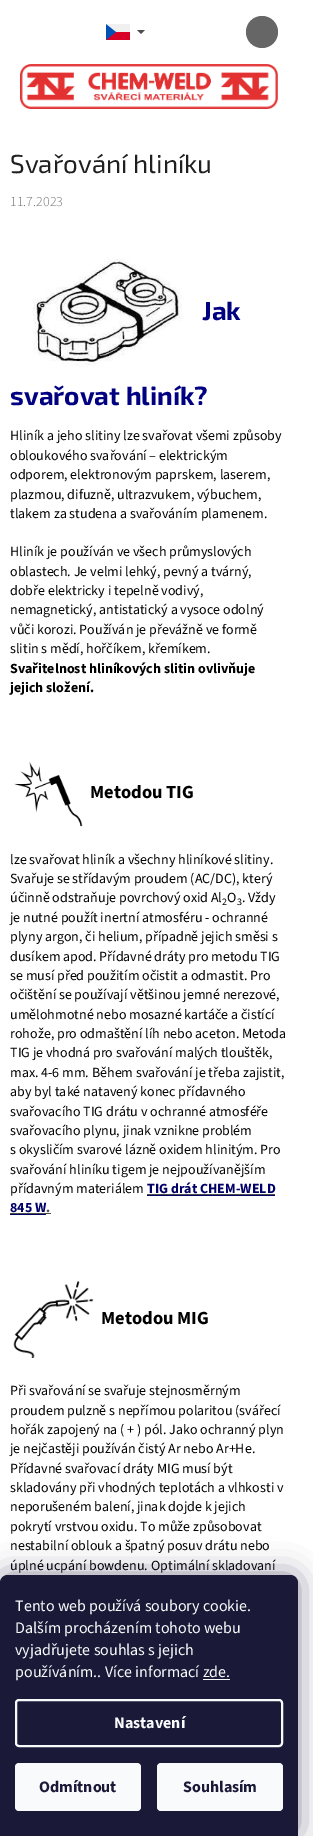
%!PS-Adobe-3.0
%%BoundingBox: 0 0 313 1836
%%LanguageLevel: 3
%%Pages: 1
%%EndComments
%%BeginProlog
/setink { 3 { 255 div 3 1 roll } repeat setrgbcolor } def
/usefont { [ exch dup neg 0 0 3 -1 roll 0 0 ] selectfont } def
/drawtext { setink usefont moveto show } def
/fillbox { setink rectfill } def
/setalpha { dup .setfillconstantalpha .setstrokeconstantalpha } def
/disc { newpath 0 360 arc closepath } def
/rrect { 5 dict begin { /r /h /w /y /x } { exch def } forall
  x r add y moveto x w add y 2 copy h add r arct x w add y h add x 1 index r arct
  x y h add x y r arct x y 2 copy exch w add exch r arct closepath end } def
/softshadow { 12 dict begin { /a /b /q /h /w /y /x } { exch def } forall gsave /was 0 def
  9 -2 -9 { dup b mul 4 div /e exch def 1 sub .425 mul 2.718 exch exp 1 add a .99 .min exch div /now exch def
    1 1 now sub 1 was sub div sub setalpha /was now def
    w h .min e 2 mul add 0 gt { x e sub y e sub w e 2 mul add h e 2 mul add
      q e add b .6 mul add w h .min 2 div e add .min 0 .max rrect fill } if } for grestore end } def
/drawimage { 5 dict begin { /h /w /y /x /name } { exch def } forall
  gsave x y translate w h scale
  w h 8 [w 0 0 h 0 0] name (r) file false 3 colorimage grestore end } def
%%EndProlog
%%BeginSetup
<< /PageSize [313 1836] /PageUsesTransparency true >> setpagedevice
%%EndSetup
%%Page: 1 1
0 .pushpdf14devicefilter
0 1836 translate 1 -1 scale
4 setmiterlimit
0 0 313 1836 255 255 255 fillbox
(assets/img1.rgb) 106 24 24 16 drawimage
77 77 77 setink
137 30 moveto 145 30 lineto 141 34 lineto closepath fill
102 102 102 setink
262 32 16 disc fill
(assets/img2.rgb) 20 64 258 45 drawimage
(Svařování hliníku) 10 173 /Exo2-Regular 26 31 31 31 drawtext
(11.7.2023) 10 206 /SourceSans3-Light 14 118 118 118 drawtext
(assets/img3.rgb) 33 258 149 109 drawimage
(Jak) 202 320 /Exo2-Bold 26 0 0 128 drawtext
(svařovat hliník?) 10 405 /Exo2-Bold 26 0 0 128 drawtext
(Hliník a jeho slitiny lze svařovat všemi způsoby) 10 440 /SourceSans3-Regular 14 0 0 0 drawtext
(obloukového svařování – elektrickým) 10 460 /SourceSans3-Regular 14 0 0 0 drawtext
(odporem, elektronovým paprskem, laserem,) 10 479 /SourceSans3-Regular 14 0 0 0 drawtext
(plazmou, difuzně, ultrazvukem, výbuchem,) 10 499 /SourceSans3-Regular 14 0 0 0 drawtext
(tlakem za studena a svařováním plamenem.) 10 518 /SourceSans3-Regular 14 0 0 0 drawtext
(Hliník je používán ve všech průmyslových) 10 556 /SourceSans3-Regular 14 0 0 0 drawtext
(oblastech. Je velmi lehký, pevný a tvárný,) 10 576 /SourceSans3-Regular 14 0 0 0 drawtext
(dobře elektricky i tepelně vodivý,) 10 595 /SourceSans3-Regular 14 0 0 0 drawtext
(nemagnetický, antistatický a vysoce odolný) 10 614 /SourceSans3-Regular 14 0 0 0 drawtext
(vůči korozi. Používán je převážně ve formě) 10 634 /SourceSans3-Regular 14 0 0 0 drawtext
(slitin s mědí, hořčíkem, křemíkem.) 10 653 /SourceSans3-Regular 14 0 0 0 drawtext
(Svařitelnost hliníkových slitin ovlivňuje) 10 673 /SourceSans3-Bold 14 0 0 0 drawtext
(jejich složení.) 10 692 /SourceSans3-Bold 14 0 0 0 drawtext
(assets/img4.rgb) 14 762 69 65 drawimage
(Metodou TIG) 90 798 /SourceSans3-Bold 18.5 0 0 0 drawtext
(lze svařovat hliník a všechny hliníkové slitiny.) 10 864 /SourceSans3-Regular 14 0 0 0 drawtext
(Svařuje se střídavým proudem \(AC/DC\), který) 10 883 /SourceSans3-Regular 14 0 0 0 drawtext
(účinně odstraňuje povrchový oxid Al) 10 902 /SourceSans3-Regular 14 0 0 0 drawtext
(2) 222 905 /SourceSans3-Regular 10 0 0 0 drawtext
(O) 227 902 /SourceSans3-Regular 14 0 0 0 drawtext
(3) 237 905 /SourceSans3-Regular 10 0 0 0 drawtext
(. Vždy) 242 902 /SourceSans3-Regular 14 0 0 0 drawtext
(je nutné použít inertní atmosféru - ochranné) 10 922 /SourceSans3-Regular 14 0 0 0 drawtext
(plyny argon, či helium, případně jejich směsi s) 10 941 /SourceSans3-Regular 14 0 0 0 drawtext
(dusíkem apod. Přídavné dráty pro metodu TIG) 10 961 /SourceSans3-Regular 14 0 0 0 drawtext
(se musí před použitím očistit a odmastit. Pro) 10 980 /SourceSans3-Regular 14 0 0 0 drawtext
(očištění se používají většinou jemné nerezové,) 10 999 /SourceSans3-Regular 14 0 0 0 drawtext
(umělohmotné nebo mosazné kartáče a čistící) 10 1019 /SourceSans3-Regular 14 0 0 0 drawtext
(rohože, pro odmaštění líh nebo aceton. Metoda) 10 1038 /SourceSans3-Regular 14 0 0 0 drawtext
(TIG je vhodná pro svařování malých tlouštěk,) 10 1057 /SourceSans3-Regular 14 0 0 0 drawtext
(max. 4-6 mm. Během svařování je třeba zajistit,) 10 1077 /SourceSans3-Regular 14 0 0 0 drawtext
(aby byl také natavený konec přídavného) 10 1096 /SourceSans3-Regular 14 0 0 0 drawtext
(svařovacího TIG drátu v ochranné atmosféře) 10 1116 /SourceSans3-Regular 14 0 0 0 drawtext
(svařovacího plynu, jinak vznikne problém) 10 1135 /SourceSans3-Regular 14 0 0 0 drawtext
(s okysličím svarové lázně oxidem hlinitým. Pro) 10 1154 /SourceSans3-Regular 14 0 0 0 drawtext
(svařování hliníku tigem je nejpoužívanějším) 10 1174 /SourceSans3-Regular 14 0 0 0 drawtext
(přídavným materiálem) 10 1193 /SourceSans3-Regular 14 0 0 0 drawtext
(TIG drát CHEM-WELD) 147 1193 /SourceSans3-Bold 14 1 0 102 drawtext
147 1195 128 1 1 0 102 fillbox
147 1194 128 1 77 77 77 fillbox
(845 W) 10 1212 /SourceSans3-Bold 14 1 0 102 drawtext
(.) 46 1212 /SourceSans3-Bold 14 77 77 77 drawtext
10 1214 36 1 1 0 102 fillbox
10 1213 41 1 77 77 77 fillbox
(assets/img5.rgb) 13 1281 81 77 drawimage
(Metodou MIG) 101 1324 /SourceSans3-Bold 18.5 0 0 0 drawtext
(Při svařování se svařuje stejnosměrným) 10 1395 /SourceSans3-Regular 14 0 0 0 drawtext
(proudem pulzně s nepřímou polaritou \(svářecí) 10 1415 /SourceSans3-Regular 14 0 0 0 drawtext
(hořák zapojený na \( + \) pól. Jako ochranný plyn) 10 1434 /SourceSans3-Regular 14 0 0 0 drawtext
(je nejčastěji používán čistý Ar nebo Ar+He.) 10 1453 /SourceSans3-Regular 14 0 0 0 drawtext
(Přídavné svařovací dráty MIG musí být) 10 1473 /SourceSans3-Regular 14 0 0 0 drawtext
(skladovány při vhodných teplotách a vlhkosti v) 10 1492 /SourceSans3-Regular 14 0 0 0 drawtext
(neporušeném balení, jinak dojde k jejich) 10 1511 /SourceSans3-Regular 14 0 0 0 drawtext
(pokrytí vrstvou oxidu. To může způsobovat) 10 1531 /SourceSans3-Regular 14 0 0 0 drawtext
(nestabilní oblouk a špatný posuv drátu nebo) 10 1550 /SourceSans3-Regular 14 0 0 0 drawtext
(úplné ucpání bowdenu. Optimální skladovaní) 10 1570 /SourceSans3-Regular 14 0 0 0 drawtext
27 25 57 setink
0 1575 298 261 8 15 0.5 softshadow
26 25 55 setink
8 1575 moveto 290 1575 lineto 294.5 1575 298 1578.5 298 1583 curveto 298 1836 lineto 0 1836 lineto 0 1583 lineto 0 1578.5 3.5 1575 8 1575 curveto closepath fill
(Tento web používá soubory cookie.) 15 1611 /SourceSans3-Regular 16 248 250 251 drawtext
(Dalším procházením tohoto webu) 15 1633 /SourceSans3-Regular 16 248 250 251 drawtext
(vyjadřujete souhlas s jejich) 15 1655 /SourceSans3-Regular 16 248 250 251 drawtext
(používáním.. Více informací zde.) 15 1677 /SourceSans3-Regular 16 248 250 251 drawtext
203 1679 27 1 248 250 251 fillbox
2 setlinewidth
16 1700 266 46 3 rrect stroke
(Nastavení) 114 1728 /SourceSans3-Bold 16 248 250 251 drawtext
15 1763 126 48 4 rrect fill
(Odmítnout) 39 1792 /SourceSans3-Bold 16 26 25 55 drawtext
248 250 251 setink
157 1763 126 48 4 rrect fill
(Souhlasím) 183 1792 /SourceSans3-Bold 16 26 25 55 drawtext
.poppdf14devicefilter showpage
%%EOF
